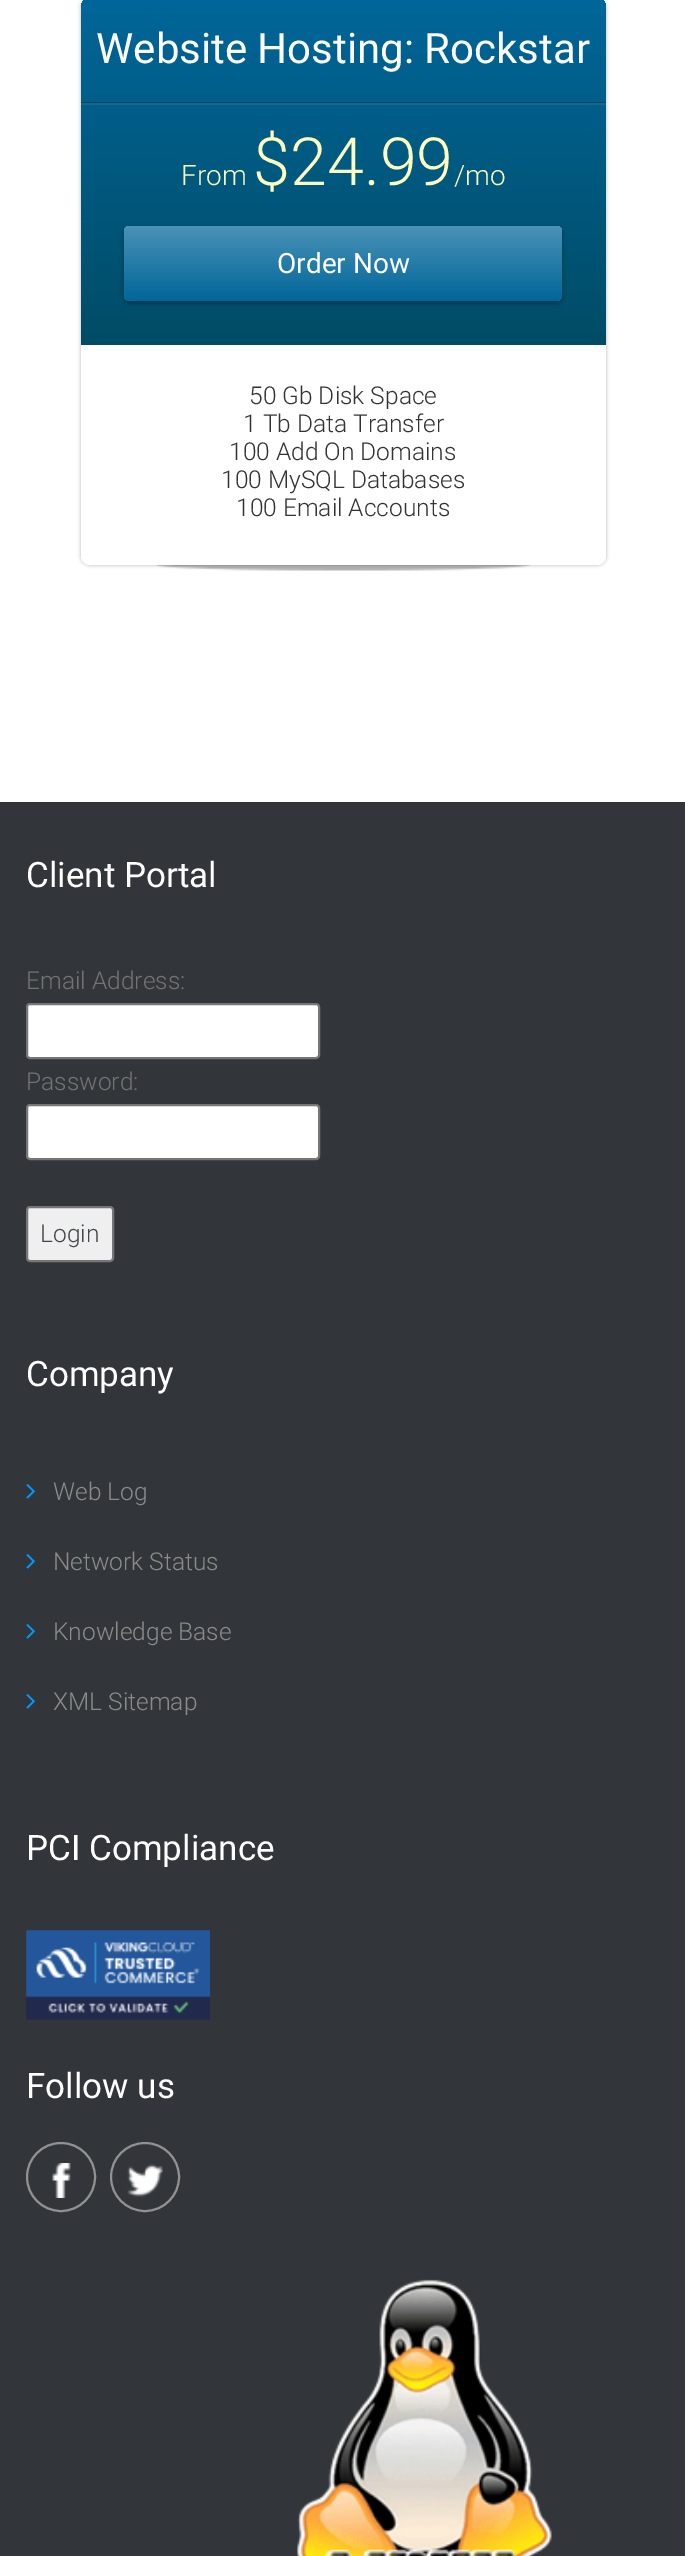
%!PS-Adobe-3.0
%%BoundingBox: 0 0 685 2556
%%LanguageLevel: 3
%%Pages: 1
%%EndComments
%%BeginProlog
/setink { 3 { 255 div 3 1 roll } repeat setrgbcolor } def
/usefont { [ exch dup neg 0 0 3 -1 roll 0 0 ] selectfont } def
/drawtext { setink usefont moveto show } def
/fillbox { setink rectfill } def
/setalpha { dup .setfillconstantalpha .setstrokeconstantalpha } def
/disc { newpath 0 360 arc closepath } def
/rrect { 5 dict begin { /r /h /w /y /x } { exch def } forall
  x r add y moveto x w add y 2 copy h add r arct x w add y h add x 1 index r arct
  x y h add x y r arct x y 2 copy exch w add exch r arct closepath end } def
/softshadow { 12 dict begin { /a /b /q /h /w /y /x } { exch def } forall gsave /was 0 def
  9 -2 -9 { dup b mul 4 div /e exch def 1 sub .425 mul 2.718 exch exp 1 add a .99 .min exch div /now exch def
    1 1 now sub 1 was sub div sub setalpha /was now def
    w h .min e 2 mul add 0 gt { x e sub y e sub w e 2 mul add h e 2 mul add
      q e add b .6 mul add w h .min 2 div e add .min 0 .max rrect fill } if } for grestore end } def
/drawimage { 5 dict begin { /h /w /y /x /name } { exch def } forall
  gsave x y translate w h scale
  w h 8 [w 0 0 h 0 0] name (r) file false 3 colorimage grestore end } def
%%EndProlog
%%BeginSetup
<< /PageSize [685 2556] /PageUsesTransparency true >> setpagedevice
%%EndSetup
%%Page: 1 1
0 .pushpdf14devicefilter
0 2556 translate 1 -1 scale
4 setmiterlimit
0 0 685 2556 255 255 255 fillbox
(assets/img1.rgb) 156 565 375 6 drawimage
0 0 0 setink
81 -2 525 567 9 2 0.3 softshadow
255 255 255 setink
81 -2 525 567 9 rrect fill
gsave 90 -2 moveto 597 -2 lineto 602 -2 606 2 606 7 curveto 606 345 lineto 81 345 lineto 81 7 lineto 81 2 85 -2 90 -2 curveto closepath clip newpath
<< /ShadingType 2 /ColorSpace /DeviceRGB /Coords [343 -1.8 343 345] /Extend [true true] /Function << /FunctionType 2 /Domain [0 1] /C0 [0 0.4 0.6] /C1 [0 0.298 0.4] /N 1 >> >> shfill grestore
81 102 525 1 0 70 98 fillbox
(Website Hosting: Rockstar) 96 63 /Roboto-Regular 42 255 255 255 drawtext
81 103 525 2 18 104 141 fillbox
(From) 181 185 /Roboto-Light 28 255 255 191 drawtext
($24.99) 253 185 /Roboto-Light 66.5 255 255 191 drawtext
(/mo) 454 185 /Roboto-Light 28 255 255 191 drawtext
0 0 0 setink
124 228 438 75 5 2 0.4 softshadow
gsave 124 226 438 75 5 rrect clip newpath
<< /ShadingType 2 /ColorSpace /DeviceRGB /Coords [343 226 343 301] /Extend [true true] /Function << /FunctionType 2 /Domain [0 1] /C0 [0.29 0.573 0.718] /C1 [0 0.4 0.6] /N 1 >> >> shfill grestore
(Order Now) 277 273 /Roboto-Regular 28 255 255 255 drawtext
(50 Gb Disk Space) 249 404 /Roboto-Light 24.5 51 51 51 drawtext
(1 Tb Data Transfer) 243 432 /Roboto-Light 24.5 51 51 51 drawtext
(100 Add On Domains) 229 460 /Roboto-Light 24.5 51 51 51 drawtext
(100 MySQL Databases) 221 488 /Roboto-Light 24.5 51 51 51 drawtext
(100 Email Accounts) 236 516 /Roboto-Light 24.5 51 51 51 drawtext
0 802 685 1754 50 53 58 fillbox
(Client Portal) 26 887 /Roboto-Regular 35 255 255 255 drawtext
(Email Address:) 26 989 /Roboto-Light 24.5 115 115 115 drawtext
255 255 255 setink
27 1004 292 54 3 rrect gsave fill grestore
118 118 118 setink
2 setlinewidth
stroke
(Password:) 26 1090 /Roboto-Light 24.5 115 115 115 drawtext
255 255 255 setink
27 1105 292 54 3 rrect gsave fill grestore
118 118 118 setink
stroke
239 239 239 setink
27 1207 86 54 3 rrect gsave fill grestore
118 118 118 setink
stroke
(Login) 40 1242 /Roboto-Light 24.5 66 69 74 drawtext
(Company) 26 1386 /Roboto-Regular 35 255 255 255 drawtext
(assets/img2.rgb) 26 1484 9 15 drawimage
(Web Log) 53 1500 /Roboto-Light 24.5 139 139 139 drawtext
(assets/img2.rgb) 26 1554 9 15 drawimage
(Network Status) 53 1570 /Roboto-Light 24.5 139 139 139 drawtext
(assets/img2.rgb) 26 1624 9 15 drawimage
(Knowledge Base) 53 1640 /Roboto-Light 24.5 139 139 139 drawtext
(assets/img2.rgb) 26 1694 9 15 drawimage
(XML Sitemap) 53 1710 /Roboto-Light 24.5 139 139 139 drawtext
(PCI Compliance) 26 1860 /Roboto-Regular 35 255 255 255 drawtext
(assets/img3.rgb) 26 1930 184 90 drawimage
(Follow us) 26 2098 /Roboto-Regular 35 255 255 255 drawtext
145 145 145 setink
61 2177 34 disc stroke
(assets/img4.rgb) 52 2163 19 35 drawimage
145 2177 34 disc stroke
(assets/img5.rgb) 127 2164 36 33 drawimage
(assets/img6.rgb) 296 2279 256 277 drawimage
.poppdf14devicefilter showpage
%%EOF
